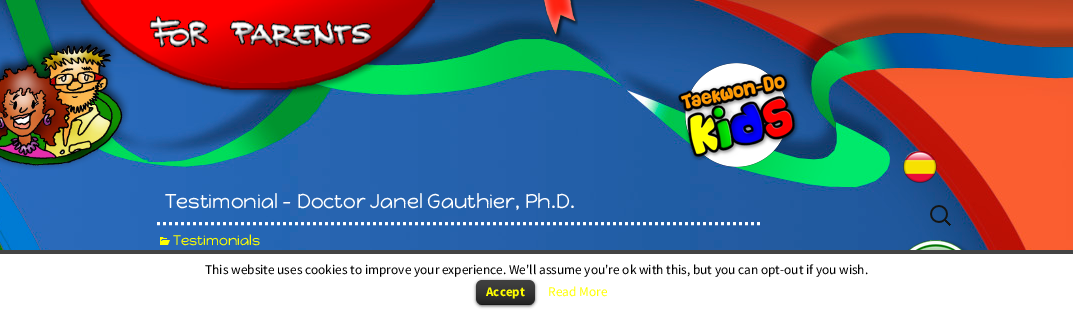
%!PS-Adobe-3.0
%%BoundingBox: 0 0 1073 310
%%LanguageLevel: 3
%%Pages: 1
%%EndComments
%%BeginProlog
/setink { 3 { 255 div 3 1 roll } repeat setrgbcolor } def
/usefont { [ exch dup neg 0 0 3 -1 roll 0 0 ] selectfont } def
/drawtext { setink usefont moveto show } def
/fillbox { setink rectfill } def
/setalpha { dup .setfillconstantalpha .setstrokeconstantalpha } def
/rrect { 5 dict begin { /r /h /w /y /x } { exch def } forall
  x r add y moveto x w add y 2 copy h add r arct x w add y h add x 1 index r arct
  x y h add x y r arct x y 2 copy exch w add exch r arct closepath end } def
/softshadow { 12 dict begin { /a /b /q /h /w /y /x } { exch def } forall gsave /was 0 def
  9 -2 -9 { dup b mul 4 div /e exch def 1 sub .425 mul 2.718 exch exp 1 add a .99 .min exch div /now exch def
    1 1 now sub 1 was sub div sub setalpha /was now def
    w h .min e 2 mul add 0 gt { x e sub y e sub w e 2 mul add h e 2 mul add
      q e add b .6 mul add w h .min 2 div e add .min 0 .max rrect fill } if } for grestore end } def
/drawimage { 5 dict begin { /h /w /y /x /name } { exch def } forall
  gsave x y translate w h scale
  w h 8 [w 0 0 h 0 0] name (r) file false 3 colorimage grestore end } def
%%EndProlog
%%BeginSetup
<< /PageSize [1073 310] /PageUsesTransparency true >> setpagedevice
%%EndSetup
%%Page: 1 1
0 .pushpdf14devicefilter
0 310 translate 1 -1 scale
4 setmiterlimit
0 0 1073 310 255 255 255 fillbox
(assets/img1.rgb) 0 0 1073 250 drawimage
(assets/img2.rgb) 0 33 129 137 drawimage
(assets/img3.rgb) 80 0 358 97 drawimage
(assets/img4.rgb) 543 0 35 39 drawimage
(assets/img5.rgb) 676 63 123 104 drawimage
(assets/img6.rgb) 902 150 35 33 drawimage
(assets/img7.rgb) 930 205 21 21 drawimage
(assets/img8.rgb) 908 240 60 10 drawimage
3 setlinewidth
[3 3] 0 setdash
157 223.5 moveto 761 223.5 lineto stroke
(Testimonial – Doctor Janel Gauthier, Ph.D.) 165 208 /HappyMonkey-Regular 20 255 255 255 drawtext
(assets/img9.rgb) 160 237 10 8 drawimage
(Testimonials) 173 245 /HappyMonkey-Regular 14 255 255 0 drawtext
0 250 1073 4 68 68 68 fillbox
(This website uses cookies to improve your experience. We'll assume you're ok with this, but you can opt-out if you wish.) 205 274 /SourceSansPro-Regular 13.35 0 0 0 drawtext
476 281 59 25 6 1.5 0.6 softshadow
476 280 59 25 6 rrect fill
(assets/img10.rgb) 476 280 59 25 drawimage
0.25 setalpha
479 304 53 1 0 0 0 fillbox
1 setalpha
(Accept) 486 296 /SourceSansPro-Bold 13 255 255 0 drawtext
(Read More) 548 296 /SourceSansPro-Regular 13.35 255 255 0 drawtext
.poppdf14devicefilter showpage
%%EOF
